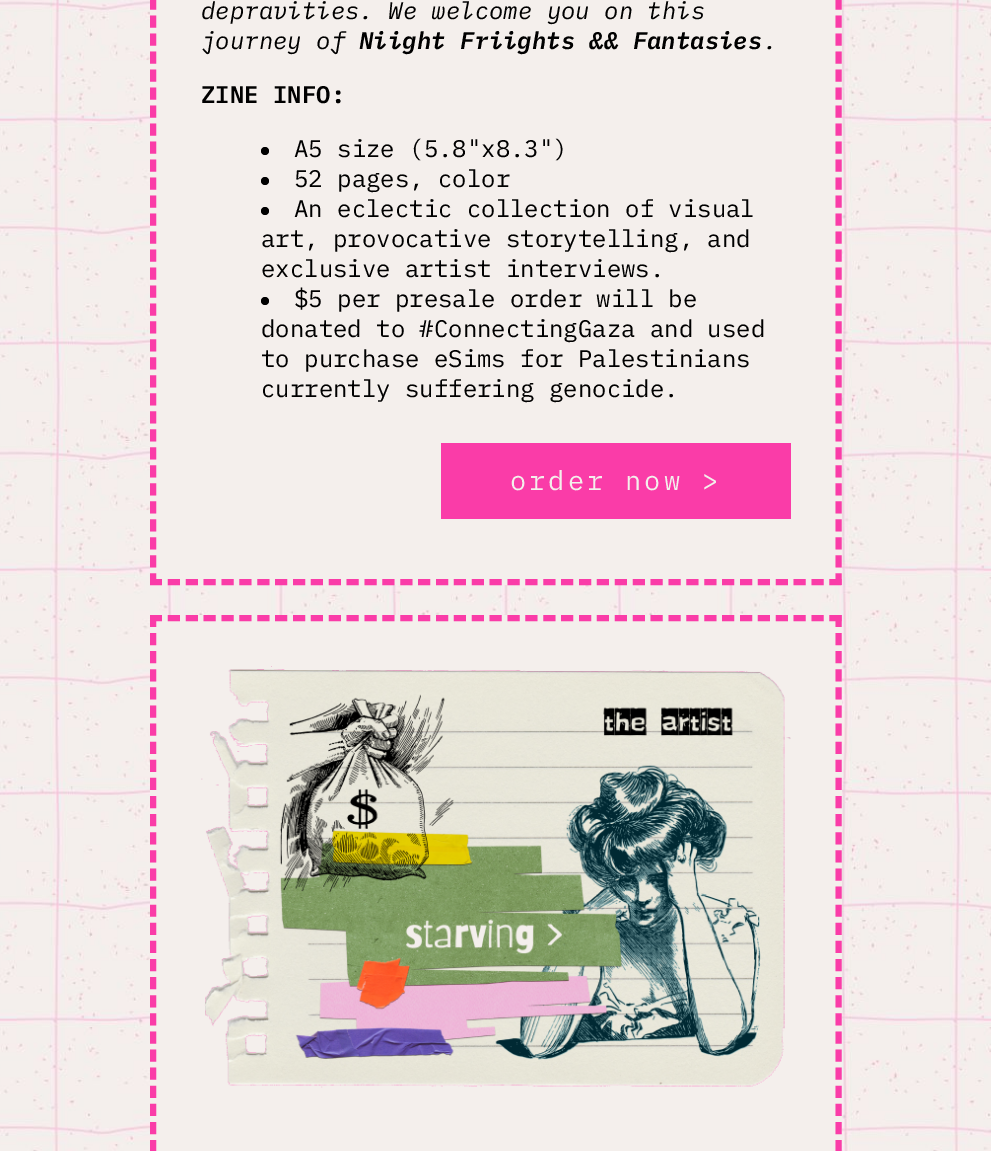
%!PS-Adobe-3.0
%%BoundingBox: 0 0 991 1151
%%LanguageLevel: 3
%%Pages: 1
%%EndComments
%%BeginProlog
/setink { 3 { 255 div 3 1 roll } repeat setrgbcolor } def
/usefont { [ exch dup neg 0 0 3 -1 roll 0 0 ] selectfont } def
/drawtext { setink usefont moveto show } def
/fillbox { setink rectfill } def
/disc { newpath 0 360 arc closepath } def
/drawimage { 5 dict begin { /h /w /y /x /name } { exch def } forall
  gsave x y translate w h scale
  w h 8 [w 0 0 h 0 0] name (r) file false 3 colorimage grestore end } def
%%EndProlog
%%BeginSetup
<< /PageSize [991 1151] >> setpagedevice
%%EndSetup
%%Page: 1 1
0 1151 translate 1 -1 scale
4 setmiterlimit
0 0 991 1151 255 255 255 fillbox
(assets/img1.rgb) 0 0 991 1151 drawimage
150 0 692 585 244 239 236 fillbox
250 60 168 setink
6 setlinewidth
[12 5.99] 0 setdash
838.5 -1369.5 moveto 838.5 585 lineto stroke
[12 5.88] 0 setdash
150 582 moveto 841.5 582 lineto stroke
[12 5.99] 0 setdash
153 -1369.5 moveto 153 585 lineto stroke
(depravities. We welcome you on this) 201 19 /IBMPlexMono-Italic 24 0 0 0 drawtext
(journey of) 201 49 /IBMPlexMono-Italic 24 0 0 0 drawtext
(Niight Friights && Fantasies) 359 49 /IBMPlexMono-SemiBoldItalic 24 0 0 0 drawtext
(.) 763 49 /IBMPlexMono-Italic 24 0 0 0 drawtext
(ZINE INFO:) 201 103 /IBMPlexMono-SemiBold 24 0 0 0 drawtext
265 151 4 disc fill
(A5 size \(5.8"x8.3"\)) 294 157 /IBMPlexMono-Regular 24 0 0 0 drawtext
265 181 4 disc fill
(52 pages, color) 294 187 /IBMPlexMono-Regular 24 0 0 0 drawtext
265 211 4 disc fill
(An eclectic collection of visual) 294 217 /IBMPlexMono-Regular 24 0 0 0 drawtext
(art, provocative storytelling, and) 261 247 /IBMPlexMono-Regular 24 0 0 0 drawtext
(exclusive artist interviews.) 261 277 /IBMPlexMono-Regular 24 0 0 0 drawtext
265 301 4 disc fill
($5 per presale order will be) 294 307 /IBMPlexMono-Regular 24 0 0 0 drawtext
(donated to #ConnectingGaza and used) 261 337 /IBMPlexMono-Regular 24 0 0 0 drawtext
(to purchase eSims for Palestinians) 261 367 /IBMPlexMono-Regular 24 0 0 0 drawtext
(currently suffering genocide.) 261 397 /IBMPlexMono-Regular 24 0 0 0 drawtext
441 443 350 76 250 60 168 fillbox
/IBMPlexMono-Regular 27 usefont
244 239 236 setink
510 490 moveto 3 0 (order now >) ashow
150 615 692 536 244 239 236 fillbox
250 60 168 setink
[12 5.88] 0 setdash
150 618 moveto 841.5 618 lineto stroke
[12 6.11] 0 setdash
838.5 615 moveto 838.5 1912.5 lineto stroke
153 615 moveto 153 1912.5 lineto stroke
(assets/img2.rgb) 201 666 590 422 drawimage
showpage
%%EOF
